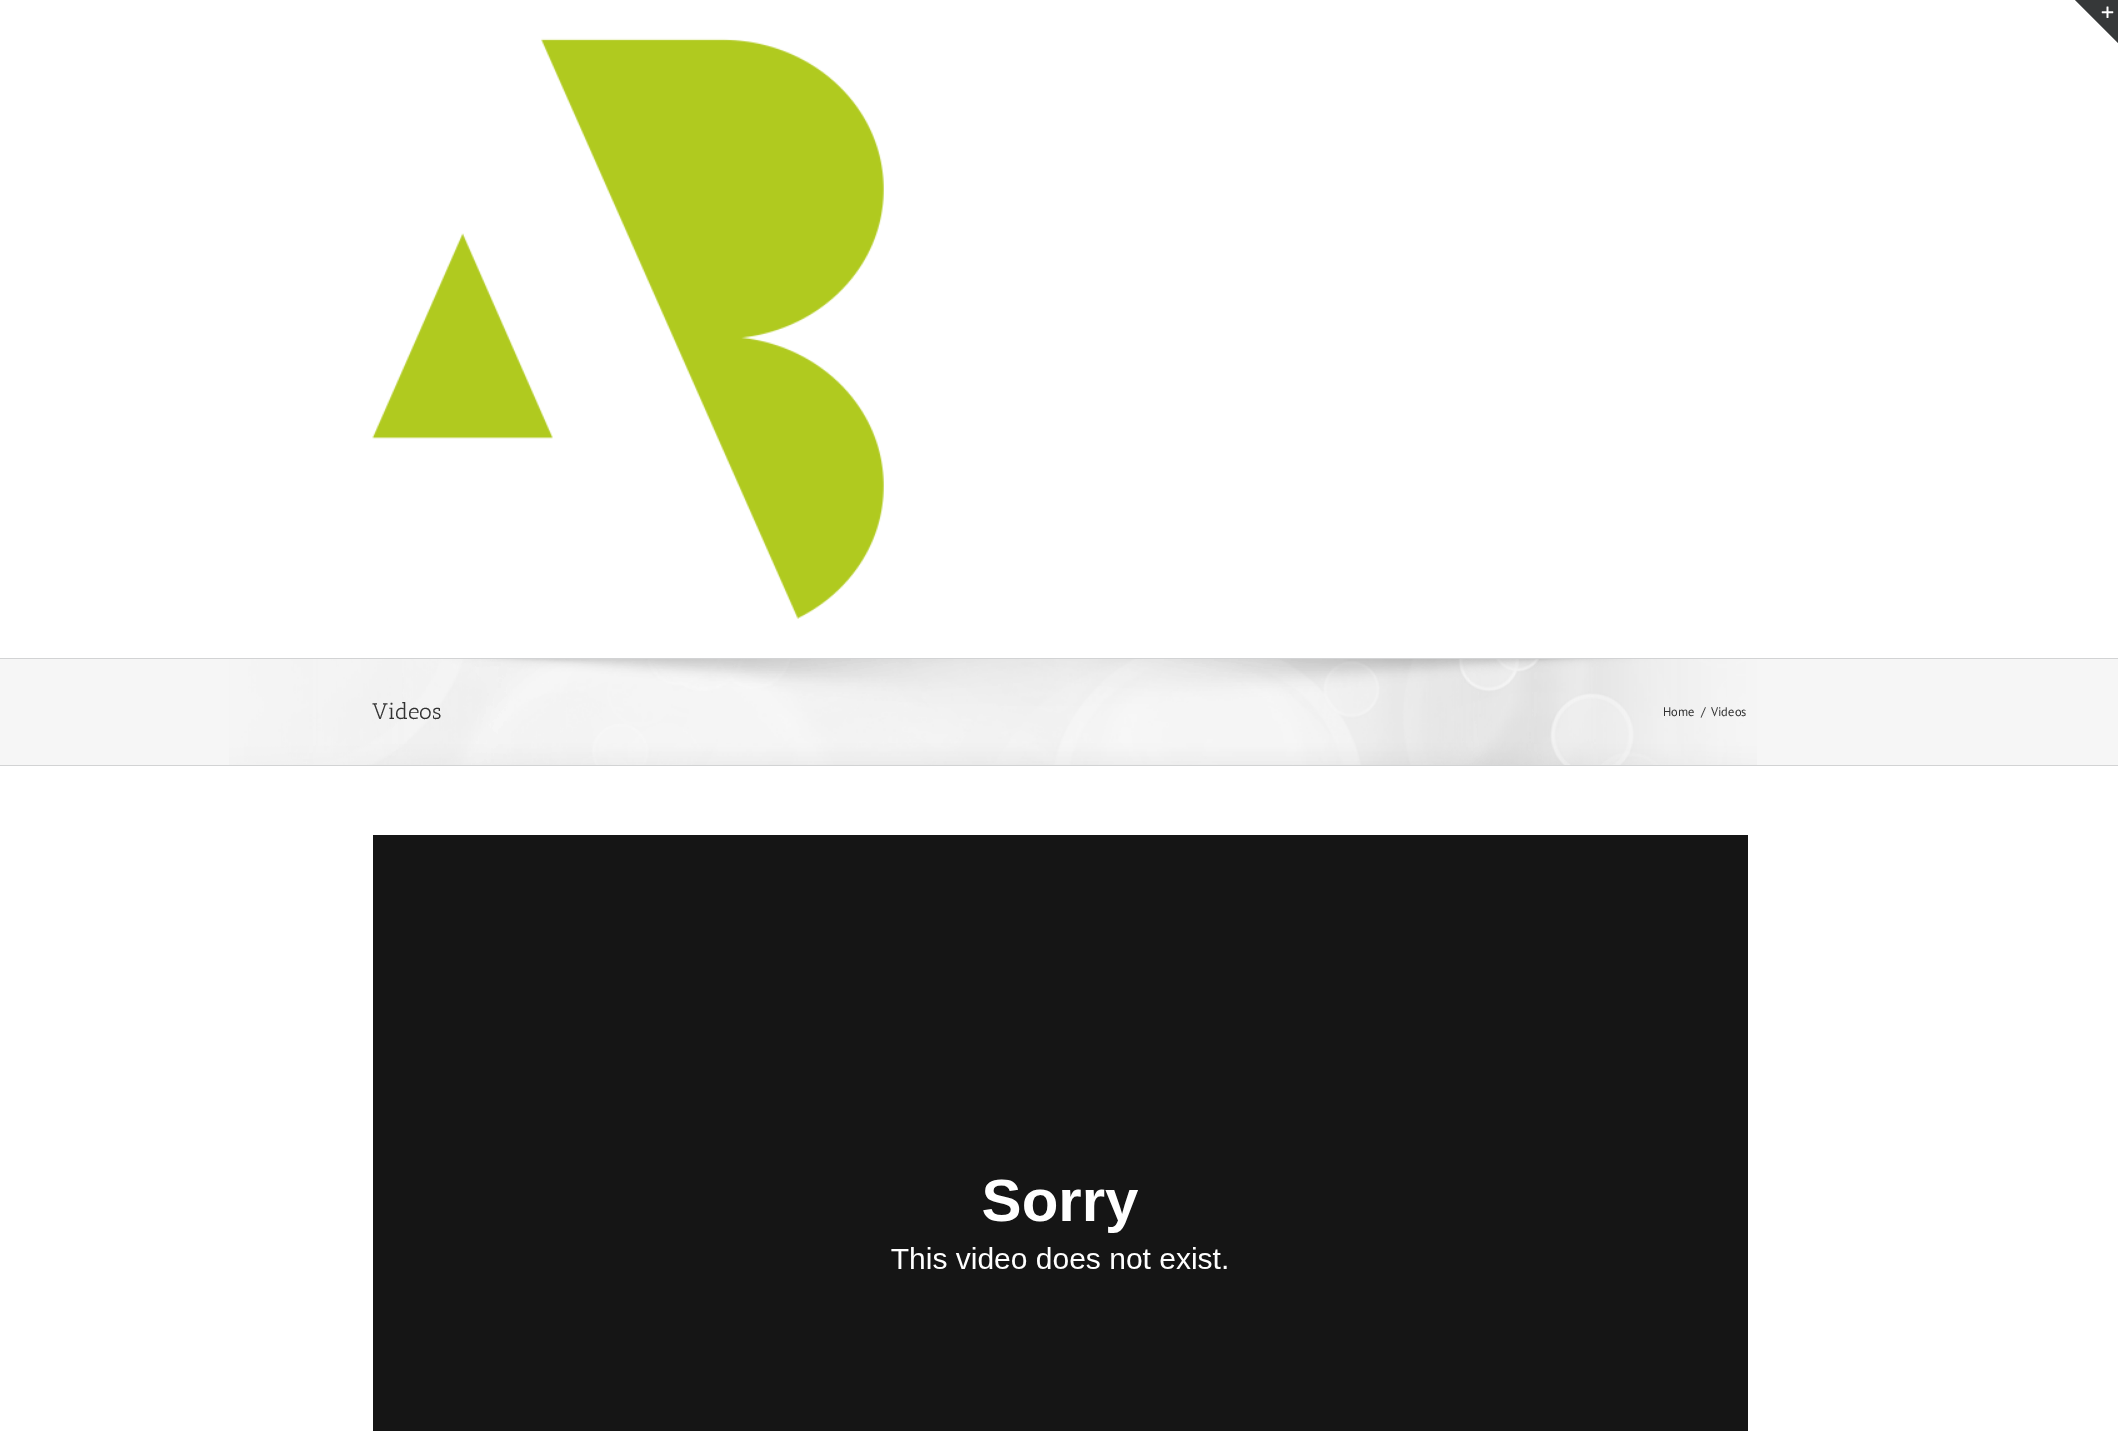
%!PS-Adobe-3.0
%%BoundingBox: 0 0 2118 1431
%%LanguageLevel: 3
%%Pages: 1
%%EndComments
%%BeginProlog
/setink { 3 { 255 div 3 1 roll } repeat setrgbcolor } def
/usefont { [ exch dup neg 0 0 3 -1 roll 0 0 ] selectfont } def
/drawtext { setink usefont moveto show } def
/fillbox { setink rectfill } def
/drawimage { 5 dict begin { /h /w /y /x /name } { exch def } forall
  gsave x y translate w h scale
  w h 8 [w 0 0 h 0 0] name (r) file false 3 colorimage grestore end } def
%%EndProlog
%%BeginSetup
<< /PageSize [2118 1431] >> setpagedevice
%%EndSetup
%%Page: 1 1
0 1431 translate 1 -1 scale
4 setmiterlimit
0 0 2118 1431 246 246 246 fillbox
0 0 2118 658 255 255 255 fillbox
(assets/img1.rgb) 372 38 512 581 drawimage
54 56 57 setink
2075 0 moveto 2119 0 lineto 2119 44 lineto closepath fill
(assets/img2.rgb) 2101 6 13 12 drawimage
(assets/img3.rgb) 229 659 1528 106 drawimage
0 658 2118 1 210 211 212 fillbox
0 765 2118 1 210 211 212 fillbox
(Videos) 372 719 /AnticSlab-Regular 22.5 51 51 51 drawtext
(Home) 1663 716 /PTSans-Regular 12.5 51 51 51 drawtext
(/) 1701 716 /PTSans-Regular 12.5 51 51 51 drawtext
(Videos) 1711 716 /PTSans-Regular 12.5 51 51 51 drawtext
0 766 2118 665 255 255 255 fillbox
(assets/img4.rgb) 373 835 1375 596 drawimage
showpage
%%EOF
